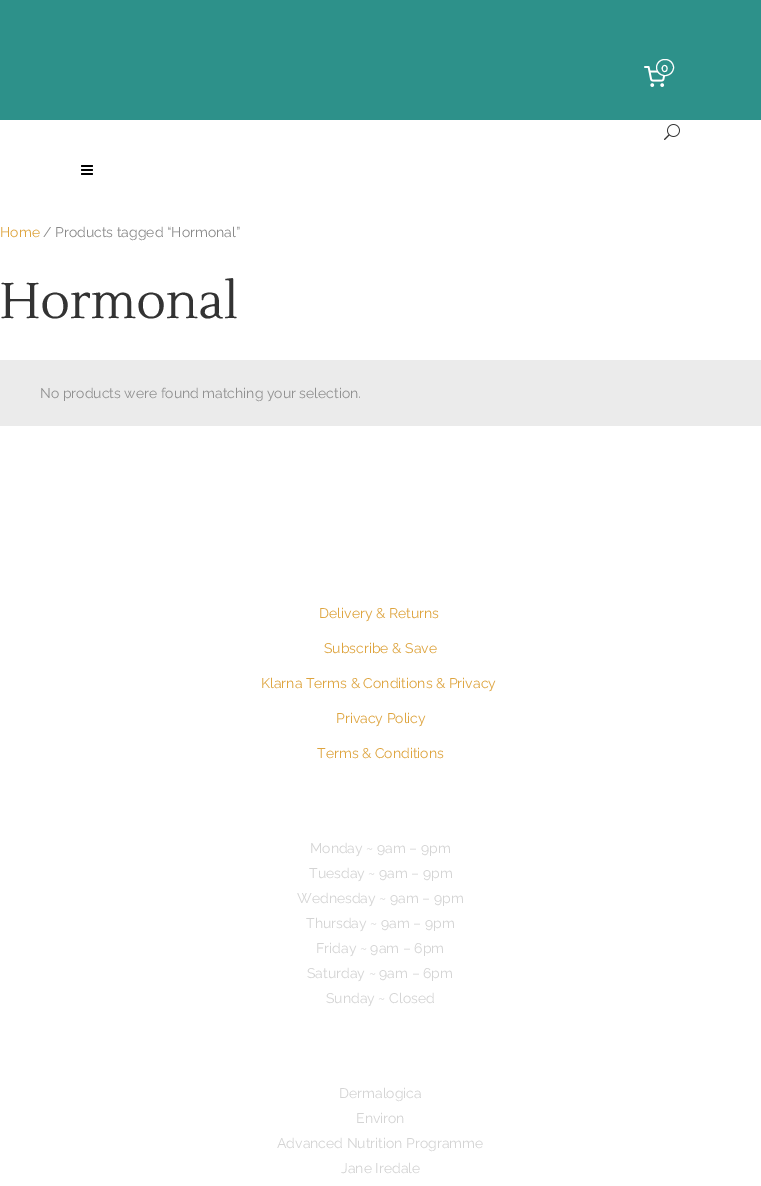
%!PS-Adobe-3.0
%%BoundingBox: 0 0 761 1186
%%LanguageLevel: 3
%%Pages: 1
%%EndComments
%%BeginProlog
/setink { 3 { 255 div 3 1 roll } repeat setrgbcolor } def
/usefont { [ exch dup neg 0 0 3 -1 roll 0 0 ] selectfont } def
/drawtext { setink usefont moveto show } def
/fillbox { setink rectfill } def
/rrect { 5 dict begin { /r /h /w /y /x } { exch def } forall
  x r add y moveto x w add y 2 copy h add r arct x w add y h add x 1 index r arct
  x y h add x y r arct x y 2 copy exch w add exch r arct closepath end } def
/drawimage { 5 dict begin { /h /w /y /x /name } { exch def } forall
  gsave x y translate w h scale
  w h 8 [w 0 0 h 0 0] name (r) file false 3 colorimage grestore end } def
%%EndProlog
%%BeginSetup
<< /PageSize [761 1186] >> setpagedevice
%%EndSetup
%%Page: 1 1
0 1186 translate 1 -1 scale
4 setmiterlimit
0 0 761 1186 255 255 255 fillbox
0 0 761 120 45 145 138 fillbox
(assets/img1.rgb) 644 66 21 21 drawimage
255 255 255 setink
656.5 59.5 17 16 8 rrect stroke
(0) 661 72 /Raleway-SemiBold 12 255 255 255 drawtext
(assets/img2.rgb) 664 124 16 16 drawimage
(assets/img3.rgb) 81 165 12 10 drawimage
(Home) 0 237 /Raleway-Regular 14 222 164 62 drawtext
(/ Products tagged “Hormonal”) 43 237 /Raleway-Regular 14 137 137 137 drawtext
(Hormonal) 0 318 /Lustria-Regular 50 51 51 51 drawtext
0 360 761 66 235 235 235 fillbox
(No products were found matching your selection.) 40 398 /Raleway-Regular 14 144 144 144 drawtext
(Delivery & Returns) 319 618 /Raleway-Regular 14 222 164 62 drawtext
(Subscribe & Save) 324 653 /Raleway-Regular 14 222 164 62 drawtext
(Klarna Terms & Conditions & Privacy) 261 688 /Raleway-Regular 14 222 164 62 drawtext
(Privacy Policy) 336 723 /Raleway-Regular 14 222 164 62 drawtext
(Terms & Conditions) 317 758 /Raleway-Regular 14 222 164 62 drawtext
(Monday ~ 9am – 9pm) 310 853 /Raleway-Regular 14 212 212 212 drawtext
(Tuesday ~ 9am – 9pm) 309 878 /Raleway-Regular 14 212 212 212 drawtext
(Wednesday ~ 9am – 9pm) 297 903 /Raleway-Regular 14 212 212 212 drawtext
(Thursday ~ 9am – 9pm) 306 928 /Raleway-Regular 14 212 212 212 drawtext
(Friday ~ 9am – 6pm) 316 953 /Raleway-Regular 14 212 212 212 drawtext
(Saturday ~ 9am – 6pm) 307 978 /Raleway-Regular 14 212 212 212 drawtext
(Sunday ~ Closed) 326 1003 /Raleway-Regular 14 212 212 212 drawtext
(Dermalogica) 339 1098 /Raleway-Regular 14 212 212 212 drawtext
(Environ) 356 1123 /Raleway-Regular 14 212 212 212 drawtext
(Advanced Nutrition Programme) 277 1148 /Raleway-Regular 14 212 212 212 drawtext
(Jane Iredale) 341 1173 /Raleway-Regular 14 212 212 212 drawtext
showpage
%%EOF
